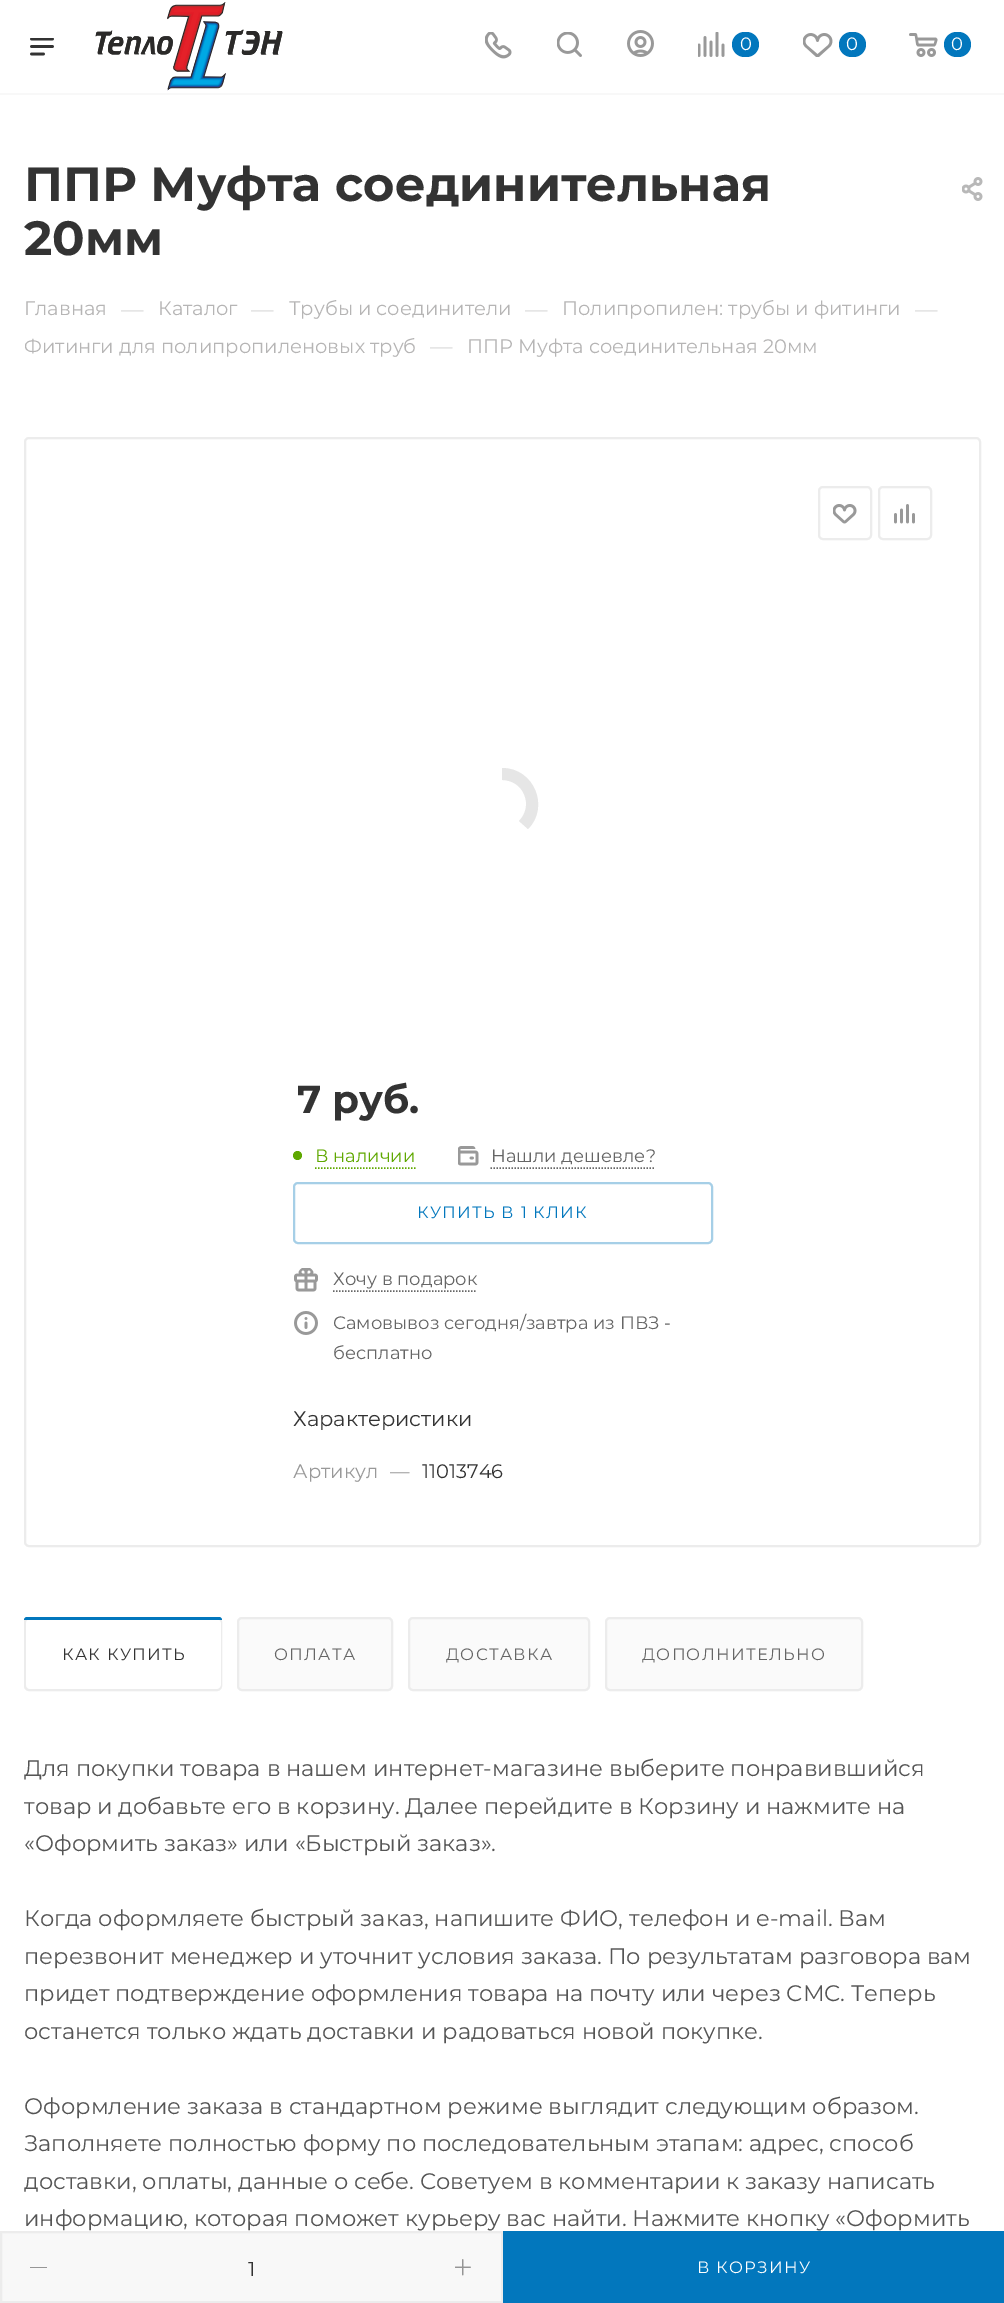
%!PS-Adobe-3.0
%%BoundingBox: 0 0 1004 2303
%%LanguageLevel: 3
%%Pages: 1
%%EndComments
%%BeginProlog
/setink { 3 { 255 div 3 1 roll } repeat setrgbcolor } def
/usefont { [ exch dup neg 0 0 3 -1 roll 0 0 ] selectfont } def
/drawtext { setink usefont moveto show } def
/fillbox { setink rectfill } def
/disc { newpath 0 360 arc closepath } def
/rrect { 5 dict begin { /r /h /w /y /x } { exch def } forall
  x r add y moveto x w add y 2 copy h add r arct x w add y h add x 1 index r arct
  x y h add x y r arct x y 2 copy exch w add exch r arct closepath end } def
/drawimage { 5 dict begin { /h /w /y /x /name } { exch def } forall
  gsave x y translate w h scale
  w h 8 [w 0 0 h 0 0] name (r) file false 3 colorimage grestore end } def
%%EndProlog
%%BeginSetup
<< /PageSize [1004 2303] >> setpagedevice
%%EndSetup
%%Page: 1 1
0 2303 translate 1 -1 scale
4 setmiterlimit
0 0 1004 2303 255 255 255 fillbox
0 93 1004 2 248 248 248 fillbox
(assets/img1.rgb) 30 38 24 18 drawimage
(assets/img2.rgb) 95 2 188 89 drawimage
(assets/img3.rgb) 485 32 27 27 drawimage
(assets/img4.rgb) 557 32 25 25 drawimage
(assets/img5.rgb) 627 30 27 27 drawimage
(assets/img6.rgb) 698 32 27 25 drawimage
2 119 189 setink
732 32 27 25 12.5 rrect fill
(0) 740 50 /Montserrat-Regular 18 255 255 255 drawtext
(assets/img7.rgb) 803 33 30 24 drawimage
2 119 189 setink
839 32 27 25 12.5 rrect fill
(0) 846 50 /Montserrat-Regular 18 255 255 255 drawtext
(assets/img8.rgb) 909 33 29 24 drawimage
2 119 189 setink
944 32 27 25 12.5 rrect fill
(0) 951 50 /Montserrat-Regular 18 255 255 255 drawtext
(ППР Муфта соединительная) 24 201 /Montserrat-Bold 48 51 51 51 drawtext
(20мм) 24 255 /Montserrat-Bold 48 51 51 51 drawtext
(assets/img9.rgb) 962 177 21 24 drawimage
(Главная) 24 315 /Montserrat-Regular 19.5 182 181 181 drawtext
(—) 121 317 /Montserrat-Regular 22.5 221 221 221 drawtext
(Каталог) 158 315 /Montserrat-Regular 19.5 182 181 181 drawtext
(—) 251 317 /Montserrat-Regular 22.5 221 221 221 drawtext
(Трубы и соединители) 289 315 /Montserrat-Regular 19.5 182 181 181 drawtext
(—) 525 317 /Montserrat-Regular 22.5 221 221 221 drawtext
(Полипропилен: трубы и фитинги) 562 315 /Montserrat-Regular 19.5 182 181 181 drawtext
(—) 915 317 /Montserrat-Regular 22.5 221 221 221 drawtext
(Фитинги для полипропиленовых труб) 24 353 /Montserrat-Regular 19.5 182 181 181 drawtext
(—) 430 354 /Montserrat-Regular 22.5 221 221 221 drawtext
(ППР Муфта соединительная 20мм) 467 353 /Montserrat-Regular 19.5 182 181 181 drawtext
236 236 236 setink
2 setlinewidth
25 438 955 1108 4 rrect stroke
819 487 52 52 4 rrect stroke
(assets/img10.rgb) 833 504 24 20 drawimage
879 487 52 52 4 rrect stroke
(assets/img11.rgb) 894 504 21 20 drawimage
230 230 230 setink
502 768 moveto 534 768 550 807 528 829 curveto 519 821 lineto 534 806 524 780 502 780 curveto closepath fill
(7 руб.) 297 1113 /Montserrat-Bold 39 51 51 51 drawtext
95 168 0 setink
297.5 1155.5 4.5 disc fill
(В наличии) 315 1162 /Montserrat-Regular 18 95 168 0 drawtext
1.5 setlinewidth
[1.5 1.5] 0 setdash
315 1168 moveto 415.5 1168 lineto stroke
(assets/img12.rgb) 458 1146 21 20 drawimage
(Нашли дешевле?) 491 1162 /Montserrat-Regular 18 102 102 102 drawtext
490.5 1168 moveto 655.5 1168 lineto stroke
166 207 231 setink
2 setlinewidth
[] 0 setdash
294 1183 418 60 4 rrect stroke
/Montserrat-Regular 16.5 usefont
2 119 189 setink
417 1218 moveto 1.25 0 (КУПИТЬ В 1 КЛИК) ashow
248 248 248 setink
1 2232 moveto 502 2232 lineto 502 2302 lineto 1 2302 lineto closepath gsave fill grestore
236 236 236 setink
stroke
150 150 150 setink
30 2267 17 1 0.5 rrect fill
(1) 248 2276 /Montserrat-Regular 20 51 51 51 drawtext
(assets/img13.rgb) 455 2259 16 17 drawimage
503 2231 501 72 2 119 189 fillbox
/Montserrat-Regular 16.5 usefont
255 255 255 setink
697 2273 moveto 1.25 0 (В КОРЗИНУ) ashow
(assets/img14.rgb) 294 1268 24 24 drawimage
(Хочу в подарок) 333 1285 /Montserrat-Regular 18 102 102 102 drawtext
1.5 setlinewidth
[1.5 1.5] 0 setdash
333 1291 moveto 477 1291 lineto stroke
(assets/img15.rgb) 294 1311 24 24 drawimage
(Самовывоз сегодня/завтра из ПВЗ -) 333 1329 /Montserrat-Regular 18 102 102 102 drawtext
(бесплатно) 333 1359 /Montserrat-Regular 18 102 102 102 drawtext
(Характеристики) 293 1426 /Montserrat-Regular 21 51 51 51 drawtext
(Артикул) 293 1478 /Montserrat-Regular 19.5 153 153 153 drawtext
(—) 390 1478 /Montserrat-Regular 19.5 153 153 153 drawtext
(11013746) 422 1478 /Montserrat-Regular 19.5 51 51 51 drawtext
250 250 250 setink
25 1618 196 72 4 rrect gsave fill grestore
236 236 236 setink
2 setlinewidth
[] 0 setdash
stroke
255 255 255 setink
26 1619 195 70 5 rrect fill
2 119 189 setink
27 1617 moveto 219 1617 lineto 220.5 1617 222 1618.5 222 1620 curveto 24 1620 lineto 24 1618.5 25.5 1617 27 1617 curveto closepath fill
/Montserrat-Regular 16.5 usefont
51 51 51 setink
62 1660 moveto 1.25 0 (КАК КУПИТЬ) ashow
250 250 250 setink
238 1618 154 72 4 rrect gsave fill grestore
236 236 236 setink
stroke
102 102 102 setink
274 1660 moveto 1.25 0 (ОПЛАТА) ashow
250 250 250 setink
409 1618 180 72 4 rrect gsave fill grestore
236 236 236 setink
stroke
102 102 102 setink
446 1660 moveto 1.25 0 (ДОСТАВКА) ashow
250 250 250 setink
606 1618 256 72 4 rrect gsave fill grestore
236 236 236 setink
stroke
102 102 102 setink
642 1660 moveto 1.25 0 (ДОПОЛНИТЕЛЬНО) ashow
(Для покупки товара в нашем интернет-магазине выберите понравившийся) 24 1776 /Montserrat-Regular 22.5 85 85 85 drawtext
(товар и добавьте его в корзину. Далее перейдите в Корзину и нажмите на) 24 1814 /Montserrat-Regular 22.5 85 85 85 drawtext
(«Оформить заказ» или «Быстрый заказ».) 24 1851 /Montserrat-Regular 22.5 85 85 85 drawtext
(Когда оформляете быстрый заказ, напишите ФИО, телефон и e-mail. Вам) 24 1926 /Montserrat-Regular 22.5 85 85 85 drawtext
(перезвонит менеджер и уточнит условия заказа. По результатам разговора вам) 24 1964 /Montserrat-Regular 22.5 85 85 85 drawtext
(придет подтверждение оформления товара на почту или через СМС. Теперь) 24 2001 /Montserrat-Regular 22.5 85 85 85 drawtext
(останется только ждать доставки и радоваться новой покупке.) 24 2039 /Montserrat-Regular 22.5 85 85 85 drawtext
(Оформление заказа в стандартном режиме выглядит следующим образом.) 24 2114 /Montserrat-Regular 22.5 85 85 85 drawtext
(Заполняете полностью форму по последовательным этапам: адрес, способ) 24 2151 /Montserrat-Regular 22.5 85 85 85 drawtext
(доставки, оплаты, данные о себе. Советуем в комментарии к заказу написать) 24 2189 /Montserrat-Regular 22.5 85 85 85 drawtext
(информацию, которая поможет курьеру вас найти. Нажмите кнопку «Оформить) 24 2226 /Montserrat-Regular 22.5 85 85 85 drawtext
showpage
%%EOF
